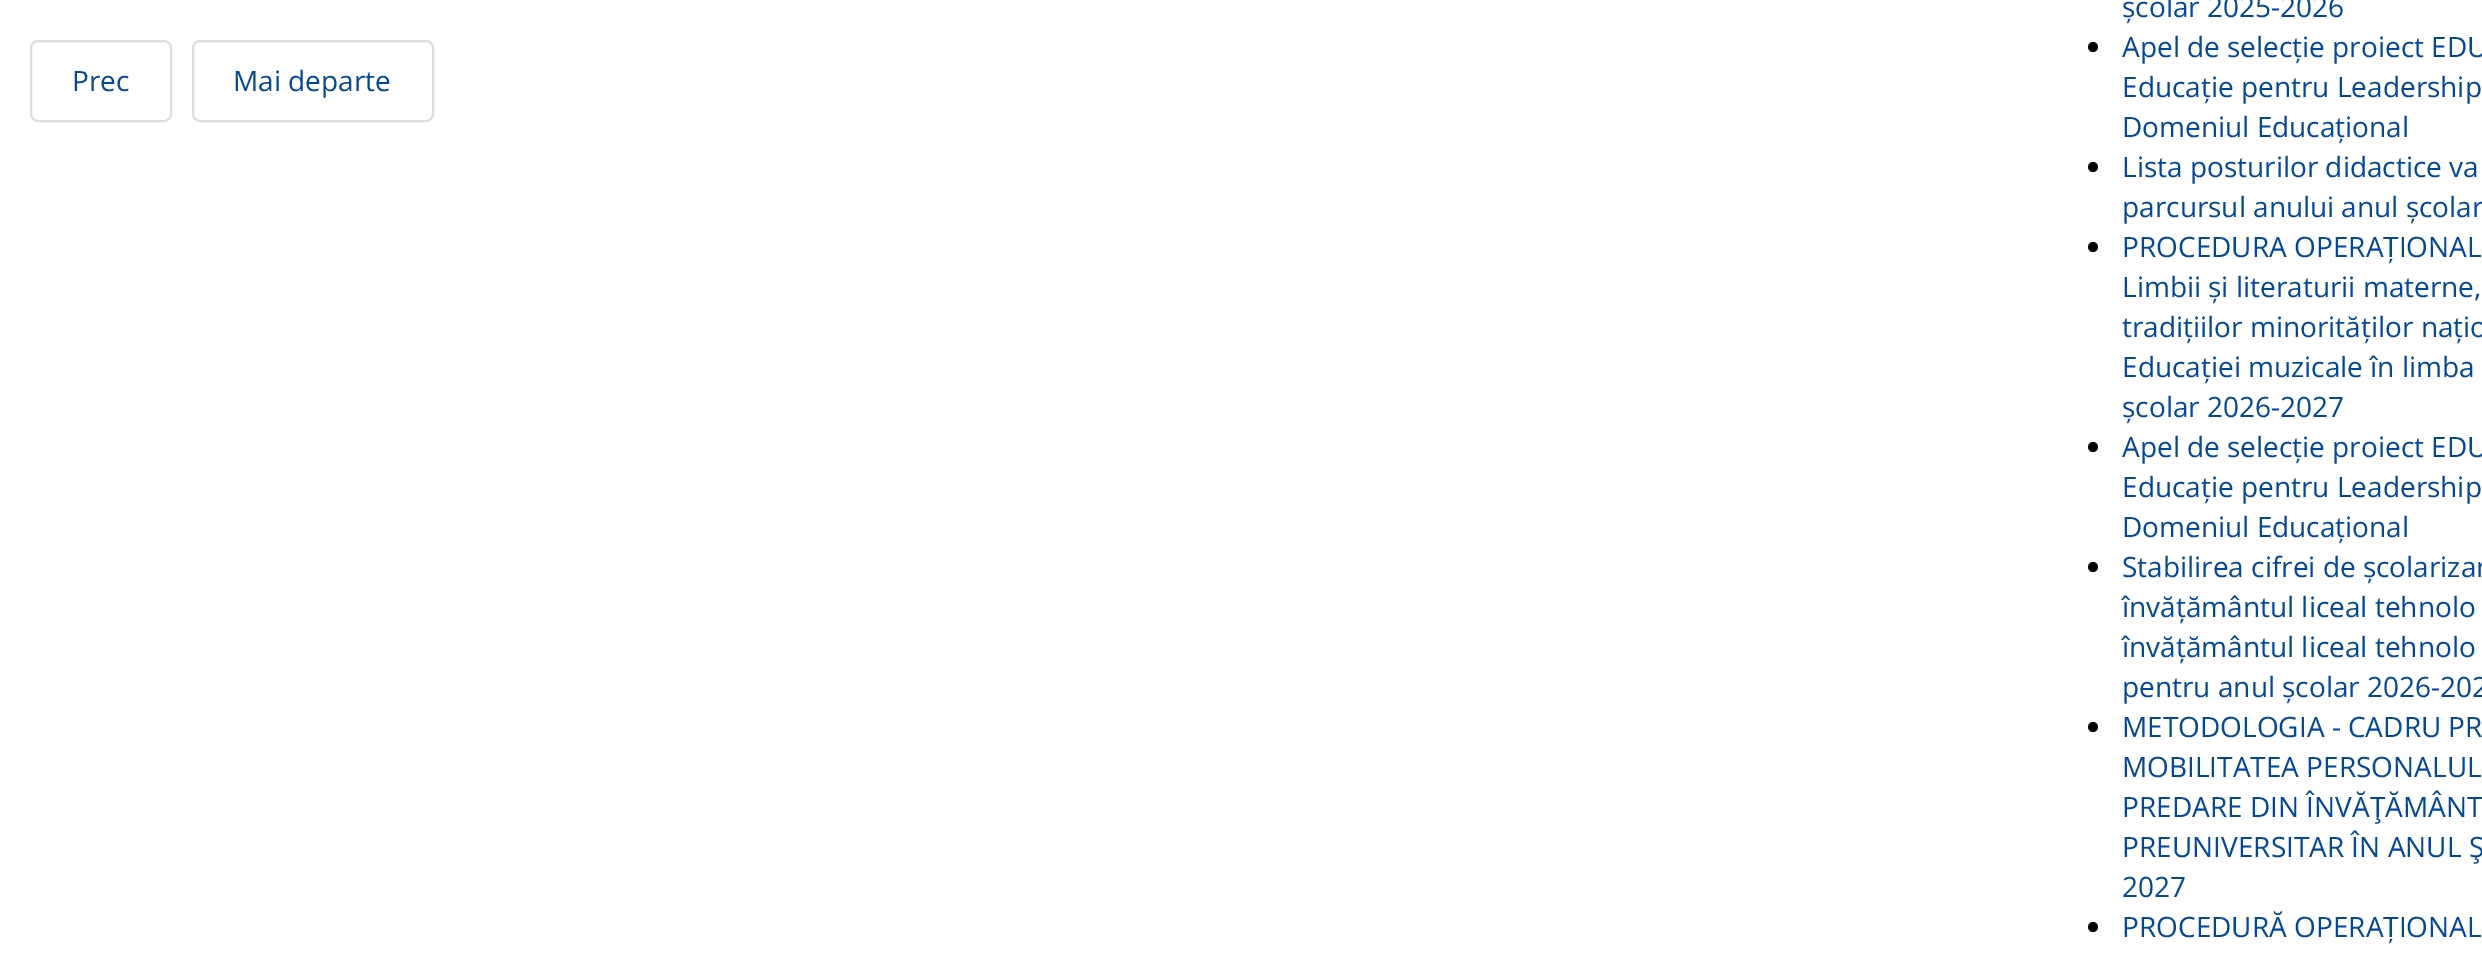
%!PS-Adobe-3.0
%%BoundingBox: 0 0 2482 958
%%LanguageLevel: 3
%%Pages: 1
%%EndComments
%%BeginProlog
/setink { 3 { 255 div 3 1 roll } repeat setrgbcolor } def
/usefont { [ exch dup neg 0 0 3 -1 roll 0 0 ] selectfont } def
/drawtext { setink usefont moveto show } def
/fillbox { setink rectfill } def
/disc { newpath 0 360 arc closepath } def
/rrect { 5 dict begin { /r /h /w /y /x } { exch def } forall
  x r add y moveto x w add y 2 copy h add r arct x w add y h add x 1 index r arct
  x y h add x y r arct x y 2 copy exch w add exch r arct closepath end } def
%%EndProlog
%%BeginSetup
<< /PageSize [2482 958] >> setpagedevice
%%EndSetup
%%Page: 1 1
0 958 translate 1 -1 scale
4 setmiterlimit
0 0 2482 958 255 255 255 fillbox
221 221 221 setink
2 setlinewidth
31 41 140 80 7 rrect stroke
(Prec) 72 91 /OpenSans-Regular 28 0 72 153 drawtext
221 221 221 setink
193 41 240 80 7 rrect stroke
(Mai departe) 233 91 /OpenSans-Regular 28 0 72 153 drawtext
(școlar 2025-2026) 2122 17 /OpenSans-Regular 28 0 72 153 drawtext
0 0 0 setink
2093 47 5 disc fill
(Apel de selecție proiect EDU) 2122 57 /OpenSans-Regular 28 0 72 153 drawtext
(Educație pentru Leadership) 2122 97 /OpenSans-Regular 28 0 72 153 drawtext
(Domeniul Educațional) 2122 137 /OpenSans-Regular 28 0 72 153 drawtext
0 0 0 setink
2093 167 5 disc fill
(Lista posturilor didactice va) 2122 177 /OpenSans-Regular 28 0 72 153 drawtext
(parcursul anului anul școlar) 2122 217 /OpenSans-Regular 28 0 72 153 drawtext
0 0 0 setink
2093 247 5 disc fill
(PROCEDURA OPERAȚIONAL) 2122 257 /OpenSans-Regular 28 0 72 153 drawtext
(Limbii și literaturii materne,) 2122 297 /OpenSans-Regular 28 0 72 153 drawtext
(tradițiilor minorităților națio) 2122 337 /OpenSans-Regular 28 0 72 153 drawtext
(Educației muzicale în limba) 2122 377 /OpenSans-Regular 28 0 72 153 drawtext
(școlar 2026-2027) 2122 417 /OpenSans-Regular 28 0 72 153 drawtext
0 0 0 setink
2093 447 5 disc fill
(Apel de selecție proiect EDU) 2122 457 /OpenSans-Regular 28 0 72 153 drawtext
(Educație pentru Leadership) 2122 497 /OpenSans-Regular 28 0 72 153 drawtext
(Domeniul Educațional) 2122 537 /OpenSans-Regular 28 0 72 153 drawtext
0 0 0 setink
2093 567 5 disc fill
(Stabilirea cifrei de școlarizar) 2122 577 /OpenSans-Regular 28 0 72 153 drawtext
(învățământul liceal tehnolo) 2122 617 /OpenSans-Regular 28 0 72 153 drawtext
(învățământul liceal tehnolo) 2122 657 /OpenSans-Regular 28 0 72 153 drawtext
(pentru anul școlar 2026-202) 2122 697 /OpenSans-Regular 28 0 72 153 drawtext
0 0 0 setink
2093 727 5 disc fill
(METODOLOGIA - CADRU PR) 2122 737 /OpenSans-Regular 28 0 72 153 drawtext
(MOBILITATEA PERSONALUL) 2122 777 /OpenSans-Regular 28 0 72 153 drawtext
(PREDARE DIN ÎNVĂŢĂMÂNT) 2122 817 /OpenSans-Regular 28 0 72 153 drawtext
(PREUNIVERSITAR ÎN ANUL Ş) 2122 857 /OpenSans-Regular 28 0 72 153 drawtext
(2027) 2122 897 /OpenSans-Regular 28 0 72 153 drawtext
0 0 0 setink
2093 927 5 disc fill
(PROCEDURĂ OPERAȚIONAL) 2122 937 /OpenSans-Regular 28 0 72 153 drawtext
showpage
%%EOF
